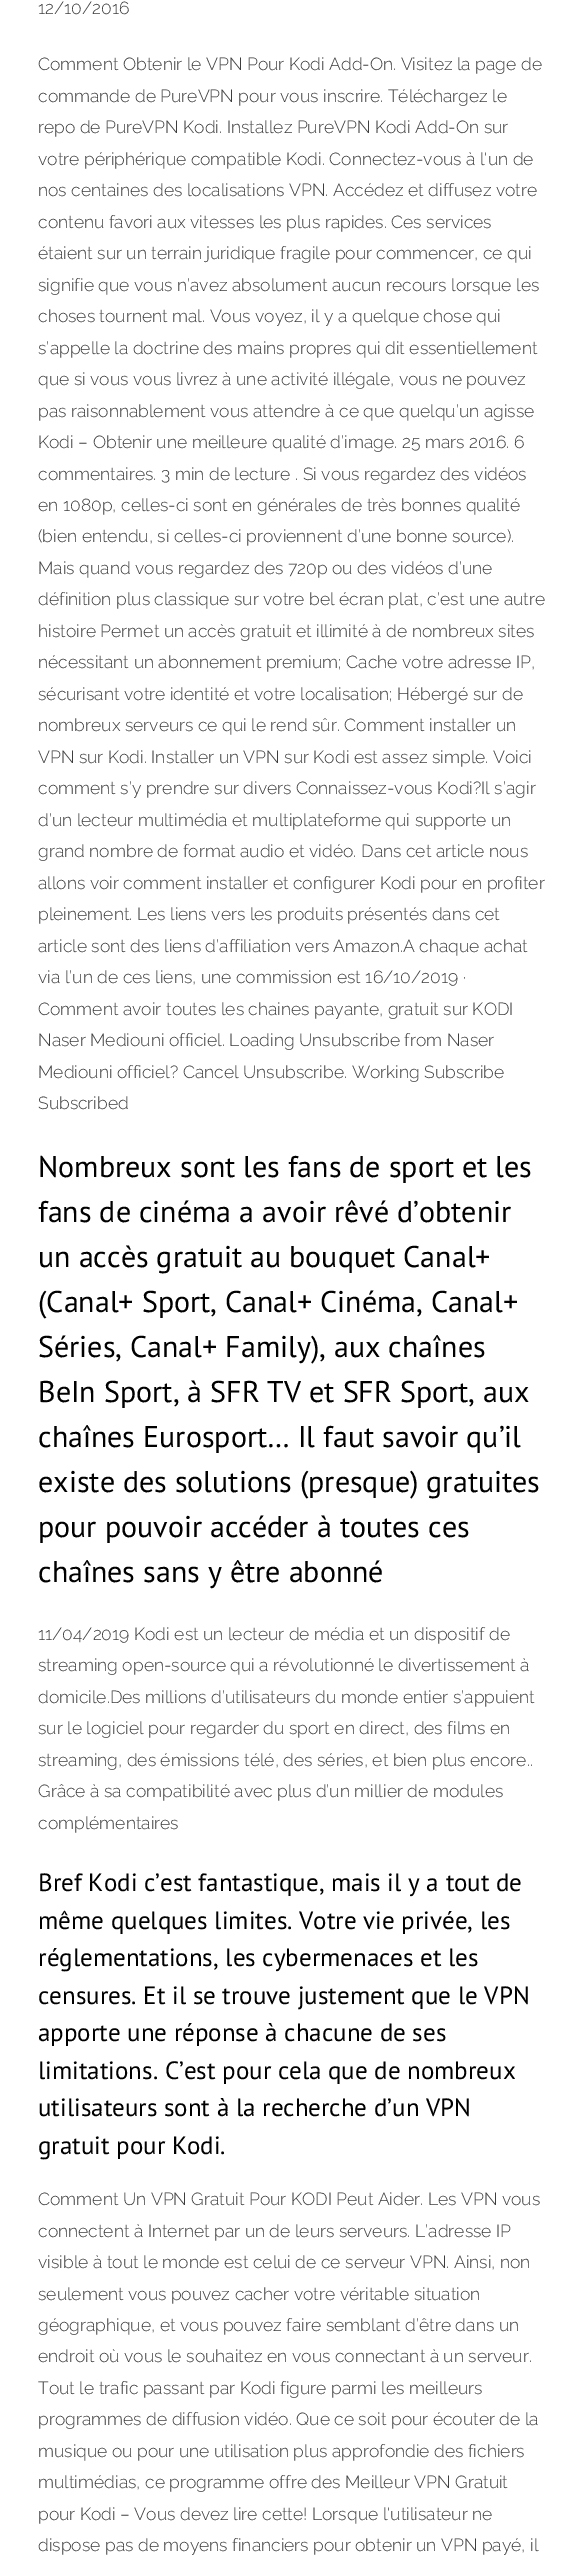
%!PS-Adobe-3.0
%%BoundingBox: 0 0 584 2574
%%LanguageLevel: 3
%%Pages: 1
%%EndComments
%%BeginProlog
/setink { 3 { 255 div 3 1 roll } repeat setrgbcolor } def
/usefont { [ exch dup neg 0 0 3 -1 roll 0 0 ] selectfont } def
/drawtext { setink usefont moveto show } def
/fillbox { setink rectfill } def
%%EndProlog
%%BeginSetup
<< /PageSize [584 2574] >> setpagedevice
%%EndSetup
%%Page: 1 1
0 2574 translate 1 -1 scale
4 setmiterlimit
0 0 584 2574 255 255 255 fillbox
(12/10/2016) 38 14 /Raleway-Light 17.5 61 61 61 drawtext
(Comment Obtenir le VPN Pour Kodi Add-On. Visitez la page de) 38 70 /Raleway-Light 17.5 61 61 61 drawtext
(commande de PureVPN pour vous inscrire. Téléchargez le) 38 102 /Raleway-Light 17.5 61 61 61 drawtext
(repo de PureVPN Kodi. Installez PureVPN Kodi Add-On sur) 38 133 /Raleway-Light 17.5 61 61 61 drawtext
(votre périphérique compatible Kodi. Connectez-vous à l'un de) 38 165 /Raleway-Light 17.5 61 61 61 drawtext
(nos centaines des localisations VPN. Accédez et diffusez votre) 38 196 /Raleway-Light 17.5 61 61 61 drawtext
(contenu favori aux vitesses les plus rapides. Ces services) 38 228 /Raleway-Light 17.5 61 61 61 drawtext
(étaient sur un terrain juridique fragile pour commencer, ce qui) 38 259 /Raleway-Light 17.5 61 61 61 drawtext
(signifie que vous n’avez absolument aucun recours lorsque les) 38 291 /Raleway-Light 17.5 61 61 61 drawtext
(choses tournent mal. Vous voyez, il y a quelque chose qui) 38 322 /Raleway-Light 17.5 61 61 61 drawtext
(s’appelle la doctrine des mains propres qui dit essentiellement) 38 354 /Raleway-Light 17.5 61 61 61 drawtext
(que si vous vous livrez à une activité illégale, vous ne pouvez) 38 385 /Raleway-Light 17.5 61 61 61 drawtext
(pas raisonnablement vous attendre à ce que quelqu’un agisse) 38 417 /Raleway-Light 17.5 61 61 61 drawtext
(Kodi – Obtenir une meilleure qualité d’image. 25 mars 2016. 6) 38 448 /Raleway-Light 17.5 61 61 61 drawtext
(commentaires. 3 min de lecture . Si vous regardez des vidéos) 38 480 /Raleway-Light 17.5 61 61 61 drawtext
(en 1080p, celles-ci sont en générales de très bonnes qualité) 38 511 /Raleway-Light 17.5 61 61 61 drawtext
(\(bien entendu, si celles-ci proviennent d’une bonne source\).) 38 542 /Raleway-Light 17.5 61 61 61 drawtext
(Mais quand vous regardez des 720p ou des vidéos d’une) 38 574 /Raleway-Light 17.5 61 61 61 drawtext
(définition plus classique sur votre bel écran plat, c’est une autre) 38 605 /Raleway-Light 17.5 61 61 61 drawtext
(histoire Permet un accès gratuit et illimité à de nombreux sites) 38 637 /Raleway-Light 17.5 61 61 61 drawtext
(nécessitant un abonnement premium; Cache votre adresse IP,) 38 668 /Raleway-Light 17.5 61 61 61 drawtext
(sécurisant votre identité et votre localisation; Hébergé sur de) 38 700 /Raleway-Light 17.5 61 61 61 drawtext
(nombreux serveurs ce qui le rend sûr. Comment installer un) 38 731 /Raleway-Light 17.5 61 61 61 drawtext
(VPN sur Kodi. Installer un VPN sur Kodi est assez simple. Voici) 38 763 /Raleway-Light 17.5 61 61 61 drawtext
(comment s’y prendre sur divers Connaissez-vous Kodi?Il s’agir) 38 794 /Raleway-Light 17.5 61 61 61 drawtext
(d’un lecteur multimédia et multiplateforme qui supporte un) 38 826 /Raleway-Light 17.5 61 61 61 drawtext
(grand nombre de format audio et vidéo. Dans cet article nous) 38 857 /Raleway-Light 17.5 61 61 61 drawtext
(allons voir comment installer et configurer Kodi pour en profiter) 38 889 /Raleway-Light 17.5 61 61 61 drawtext
(pleinement. Les liens vers les produits présentés dans cet) 38 920 /Raleway-Light 17.5 61 61 61 drawtext
(article sont des liens d’affiliation vers Amazon.A chaque achat) 38 952 /Raleway-Light 17.5 61 61 61 drawtext
(via l’un de ces liens, une commission est 16/10/2019 ·) 38 983 /Raleway-Light 17.5 61 61 61 drawtext
(Comment avoir toutes les chaines payante, gratuit sur KODI) 38 1015 /Raleway-Light 17.5 61 61 61 drawtext
(Naser Mediouni officiel. Loading Unsubscribe from Naser) 38 1046 /Raleway-Light 17.5 61 61 61 drawtext
(Mediouni officiel? Cancel Unsubscribe. Working Subscribe) 38 1078 /Raleway-Light 17.5 61 61 61 drawtext
(Subscribed) 38 1109 /Raleway-Light 17.5 61 61 61 drawtext
(Nombreux sont les fans de sport et les) 38 1177 /PTSans-Regular 30 0 0 0 drawtext
(fans de cinéma a avoir rêvé d’obtenir) 38 1222 /PTSans-Regular 30 0 0 0 drawtext
(un accès gratuit au bouquet Canal+) 38 1267 /PTSans-Regular 30 0 0 0 drawtext
(\(Canal+ Sport, Canal+ Cinéma, Canal+) 38 1312 /PTSans-Regular 30 0 0 0 drawtext
(Séries, Canal+ Family\), aux chaînes) 38 1357 /PTSans-Regular 30 0 0 0 drawtext
(BeIn Sport, à SFR TV et SFR Sport, aux) 38 1402 /PTSans-Regular 30 0 0 0 drawtext
(chaînes Eurosport… Il faut savoir qu’il) 38 1447 /PTSans-Regular 30 0 0 0 drawtext
(existe des solutions \(presque\) gratuites) 38 1492 /PTSans-Regular 30 0 0 0 drawtext
(pour pouvoir accéder à toutes ces) 38 1537 /PTSans-Regular 30 0 0 0 drawtext
(chaînes sans y être abonné) 38 1582 /PTSans-Regular 30 0 0 0 drawtext
(11/04/2019 Kodi est un lecteur de média et un dispositif de) 38 1640 /Raleway-Light 17.5 61 61 61 drawtext
(streaming open-source qui a révolutionné le divertissement à) 38 1671 /Raleway-Light 17.5 61 61 61 drawtext
(domicile.Des millions d’utilisateurs du monde entier s’appuient) 38 1703 /Raleway-Light 17.5 61 61 61 drawtext
(sur le logiciel pour regarder du sport en direct, des films en) 38 1734 /Raleway-Light 17.5 61 61 61 drawtext
(streaming, des émissions télé, des séries, et bien plus encore..) 38 1766 /Raleway-Light 17.5 61 61 61 drawtext
(Grâce à sa compatibilité avec plus d’un millier de modules) 38 1797 /Raleway-Light 17.5 61 61 61 drawtext
(complémentaires) 38 1829 /Raleway-Light 17.5 61 61 61 drawtext
(Bref Kodi c’est fantastique, mais il y a tout de) 38 1891 /PTSans-Regular 25 0 0 0 drawtext
(même quelques limites. Votre vie privée, les) 38 1929 /PTSans-Regular 25 0 0 0 drawtext
(réglementations, les cybermenaces et les) 38 1966 /PTSans-Regular 25 0 0 0 drawtext
(censures. Et il se trouve justement que le VPN) 38 2004 /PTSans-Regular 25 0 0 0 drawtext
(apporte une réponse à chacune de ses) 38 2041 /PTSans-Regular 25 0 0 0 drawtext
(limitations. C’est pour cela que de nombreux) 38 2079 /PTSans-Regular 25 0 0 0 drawtext
(utilisateurs sont à la recherche d’un VPN) 38 2116 /PTSans-Regular 25 0 0 0 drawtext
(gratuit pour Kodi.) 38 2154 /PTSans-Regular 25 0 0 0 drawtext
(Comment Un VPN Gratuit Pour KODI Peut Aider. Les VPN vous) 38 2205 /Raleway-Light 17.5 61 61 61 drawtext
(connectent à Internet par un de leurs serveurs. L’adresse IP) 38 2237 /Raleway-Light 17.5 61 61 61 drawtext
(visible à tout le monde est celui de ce serveur VPN. Ainsi, non) 38 2268 /Raleway-Light 17.5 61 61 61 drawtext
(seulement vous pouvez cacher votre véritable situation) 38 2300 /Raleway-Light 17.5 61 61 61 drawtext
(géographique, et vous pouvez faire semblant d’être dans un) 38 2331 /Raleway-Light 17.5 61 61 61 drawtext
(endroit où vous le souhaitez en vous connectant à un serveur.) 38 2362 /Raleway-Light 17.5 61 61 61 drawtext
(Tout le trafic passant par Kodi figure parmi les meilleurs) 38 2394 /Raleway-Light 17.5 61 61 61 drawtext
(programmes de diffusion vidéo. Que ce soit pour écouter de la) 38 2425 /Raleway-Light 17.5 61 61 61 drawtext
(musique ou pour une utilisation plus approfondie des fichiers) 38 2457 /Raleway-Light 17.5 61 61 61 drawtext
(multimédias, ce programme offre des Meilleur VPN Gratuit) 38 2488 /Raleway-Light 17.5 61 61 61 drawtext
(pour Kodi – Vous devez lire cette! Lorsque l'utilisateur ne) 38 2520 /Raleway-Light 17.5 61 61 61 drawtext
(dispose pas de moyens financiers pour obtenir un VPN payé, il) 38 2551 /Raleway-Light 17.5 61 61 61 drawtext
showpage
%%EOF
